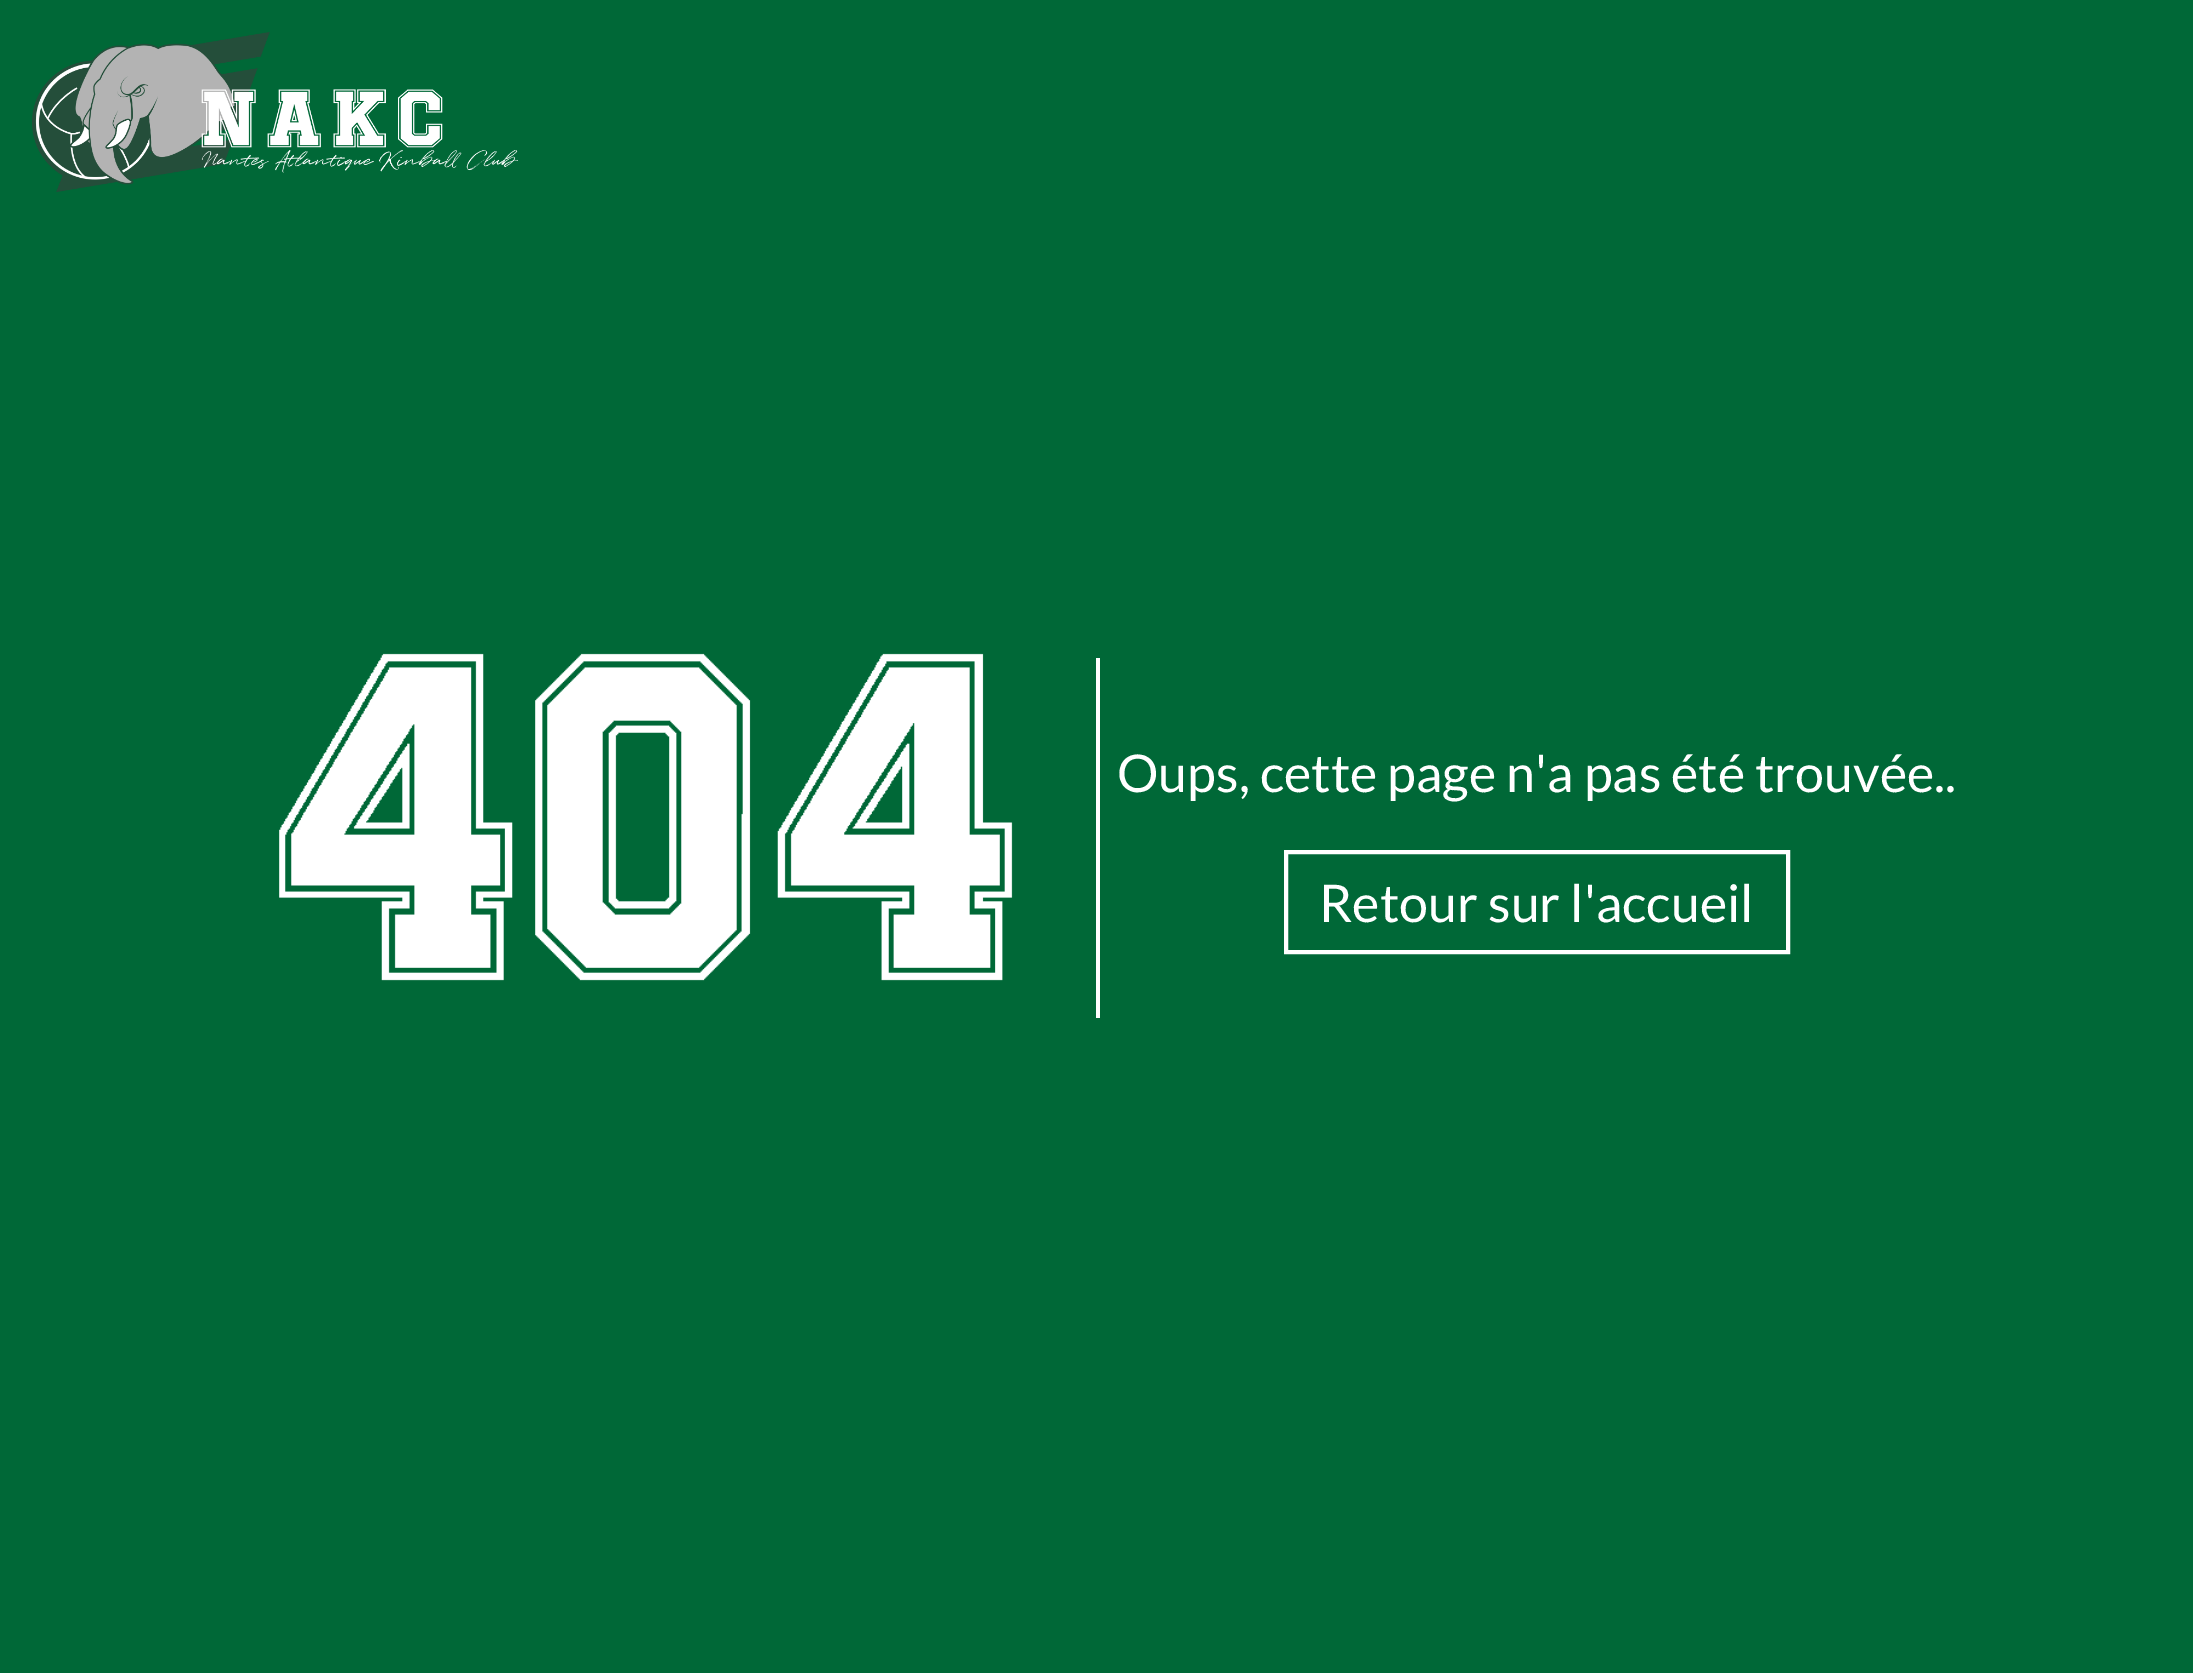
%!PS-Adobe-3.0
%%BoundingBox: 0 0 2193 1673
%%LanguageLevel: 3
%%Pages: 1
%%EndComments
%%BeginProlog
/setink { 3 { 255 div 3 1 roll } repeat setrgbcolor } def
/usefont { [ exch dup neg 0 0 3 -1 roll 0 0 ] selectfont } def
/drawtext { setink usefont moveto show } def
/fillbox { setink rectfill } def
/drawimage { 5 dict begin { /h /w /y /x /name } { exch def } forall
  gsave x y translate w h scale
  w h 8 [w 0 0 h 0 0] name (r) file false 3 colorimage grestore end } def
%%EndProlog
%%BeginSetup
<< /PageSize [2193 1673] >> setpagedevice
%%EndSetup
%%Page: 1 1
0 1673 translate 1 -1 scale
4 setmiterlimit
0 0 2193 1673 0 104 55 fillbox
(assets/img1.rgb) 32 32 486 160 drawimage
(assets/img2.rgb) 279 653 734 328 drawimage
1096 658 4 360 255 255 255 fillbox
(Oups, cette page n'a pas été trouvée..) 1117 792 /Lato-Regular 52 255 255 255 drawtext
4 setlinewidth
1286 852 502 100 rectstroke
(Retour sur l'accueil) 1319 922 /Lato-Regular 52 255 255 255 drawtext
showpage
%%EOF
